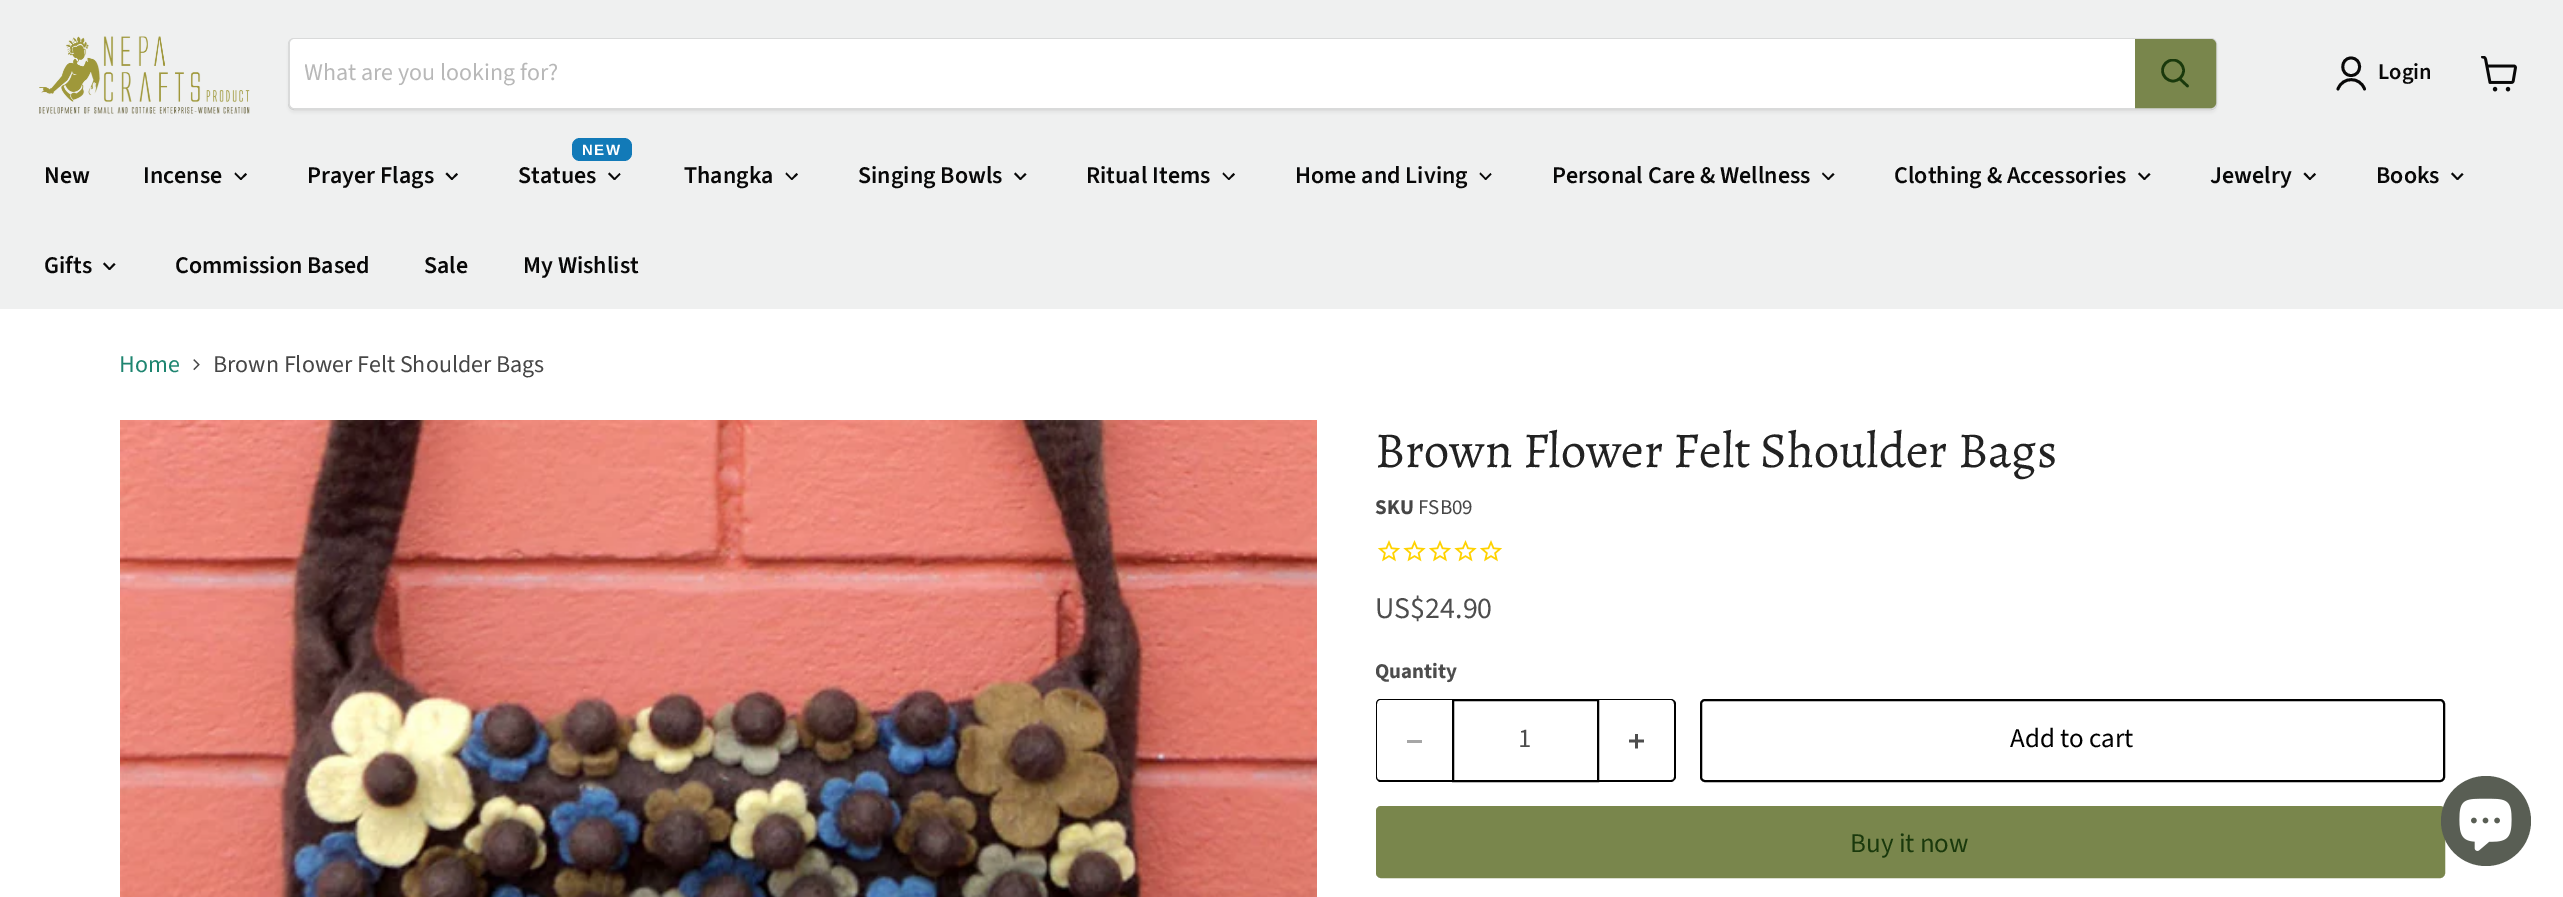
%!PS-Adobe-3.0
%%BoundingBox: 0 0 2563 897
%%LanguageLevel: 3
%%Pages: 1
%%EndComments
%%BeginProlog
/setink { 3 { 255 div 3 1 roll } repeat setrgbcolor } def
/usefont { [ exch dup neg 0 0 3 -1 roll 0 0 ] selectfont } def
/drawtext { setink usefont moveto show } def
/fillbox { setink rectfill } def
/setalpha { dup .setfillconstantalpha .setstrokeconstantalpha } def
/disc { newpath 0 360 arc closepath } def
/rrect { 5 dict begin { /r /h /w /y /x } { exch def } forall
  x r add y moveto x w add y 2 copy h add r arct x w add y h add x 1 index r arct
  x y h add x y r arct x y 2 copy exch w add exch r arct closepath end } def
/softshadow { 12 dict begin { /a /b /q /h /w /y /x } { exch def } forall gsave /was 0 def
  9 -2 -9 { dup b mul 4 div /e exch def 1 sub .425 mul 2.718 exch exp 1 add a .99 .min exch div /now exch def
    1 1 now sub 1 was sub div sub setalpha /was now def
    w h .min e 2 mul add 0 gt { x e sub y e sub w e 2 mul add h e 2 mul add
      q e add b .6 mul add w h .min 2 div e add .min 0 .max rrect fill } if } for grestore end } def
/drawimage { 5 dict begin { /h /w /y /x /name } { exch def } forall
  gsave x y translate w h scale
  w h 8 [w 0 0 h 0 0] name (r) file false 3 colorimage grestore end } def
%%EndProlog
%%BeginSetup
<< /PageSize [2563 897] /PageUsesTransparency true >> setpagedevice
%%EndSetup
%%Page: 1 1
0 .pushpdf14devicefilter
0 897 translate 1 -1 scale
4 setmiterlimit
0 0 2563 897 255 255 255 fillbox
0 0 2563 309 239 240 240 fillbox
(assets/img1.rgb) 39 36 211 78 drawimage
gsave
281 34 moveto 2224 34 lineto 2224 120 lineto 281 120 lineto closepath 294 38 moveto 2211 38 lineto 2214.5 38 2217 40.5 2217 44 curveto 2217 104 lineto 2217 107.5 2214.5 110 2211 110 curveto 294 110 lineto 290.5 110 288 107.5 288 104 curveto 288 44 lineto 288 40.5 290.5 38 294 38 curveto closepath eoclip newpath
128 128 128 setink
288 41 1929 72 6 2 0.11 softshadow
grestore
0.2 setalpha
128 128 128 setink
2 setlinewidth
289 39 1927 70 5 rrect stroke
1 setalpha
255 255 255 setink
295 39 moveto 2135 39 lineto 2135 108 lineto 295 108 lineto 292 108 290 106 290 103 curveto 290 44 lineto 290 41 292 39 295 39 curveto closepath fill
gsave
305 56 1815 33 rectclip
(What are you looking for?) 304 80 /SourceSansPro-Regular 24 184 184 184 drawtext
grestore
121 134 76 setink
2136 40 moveto 2211 40 lineto 2213 40 2215 42 2215 44 curveto 2215 103 lineto 2215 105 2213 107 2211 107 curveto 2136 107 lineto closepath gsave fill grestore
stroke
26 57 12 setink
2.6 setlinewidth
1 setlinecap
2187.5 86 moveto 2180 79 lineto stroke
gsave
2160 59 30 31 rectclip
0 setlinecap
2173 70.5 10.5 disc stroke
grestore
8 8 8 setink
2.8 setlinewidth
1 setlinejoin
2351 75.5 moveto 2362.5 75.5 2362.5 58 2351 58 curveto 2340 58 2340 75.5 2351 75.5 curveto closepath 2364.5 89 moveto 2360 76.5 2342.5 76.5 2338 89 curveto stroke
(Login) 2378 79 /SourceSansPro-SemiBold 22.5 8 8 8 drawtext
(assets/img2.rgb) 2481 56 36 36 drawimage
(New) 44 183 /SourceSansPro-SemiBold 24 8 8 8 drawtext
(Incense) 143 183 /SourceSansPro-SemiBold 24 8 8 8 drawtext
245.5 173 moveto 247 174.5 lineto 241 180 lineto 240 179 lineto closepath fill
235.5 172.5 moveto 242 179 lineto 240.5 180 lineto 234.5 174 lineto closepath fill
(Prayer Flags) 307 183 /SourceSansPro-SemiBold 24 8 8 8 drawtext
456.5 173 moveto 458 174.5 lineto 452 180 lineto 451 179 lineto closepath fill
447 172.5 moveto 453 179 lineto 451.5 180 lineto 445.5 174 lineto closepath fill
18 122 184 setink
572 138 60 23 8 rrect fill
/LiberationSans-Bold 15 usefont
255 255 255 setink
582 155 moveto 1.5 0 (NEW) ashow
(Statues) 518 183 /SourceSansPro-SemiBold 24 8 8 8 drawtext
619.5 173 moveto 620.5 174.5 lineto 615 180 lineto 613.5 179 lineto closepath fill
609.5 172.5 moveto 615.5 179 lineto 614 180 lineto 608 174 lineto closepath fill
(Thangka) 684 183 /SourceSansPro-SemiBold 24 8 8 8 drawtext
796.5 173 moveto 798 174.5 lineto 792 180 lineto 791 179 lineto closepath fill
786.5 172.5 moveto 792.5 179 lineto 791.5 180 lineto 785.5 174 lineto closepath fill
(Singing Bowls) 858 183 /SourceSansPro-SemiBold 24 8 8 8 drawtext
1025 173 moveto 1026.5 174.5 lineto 1020.5 180 lineto 1019.5 179 lineto closepath fill
1015.5 172.5 moveto 1021.5 179 lineto 1020 180 lineto 1014 174 lineto closepath fill
(Ritual Items) 1086 183 /SourceSansPro-SemiBold 24 8 8 8 drawtext
1233.5 173 moveto 1235 174.5 lineto 1229 180 lineto 1228 179 lineto closepath fill
1223.5 172.5 moveto 1229.5 179 lineto 1228.5 180 lineto 1222.5 174 lineto closepath fill
(Home and Living) 1295 183 /SourceSansPro-SemiBold 24 8 8 8 drawtext
1490.5 173 moveto 1491.5 174.5 lineto 1486 180 lineto 1484.5 179 lineto closepath fill
1480.5 172.5 moveto 1486.5 179 lineto 1485.5 180 lineto 1479.5 174 lineto closepath fill
(Personal Care & Wellness) 1552 183 /SourceSansPro-SemiBold 24 8 8 8 drawtext
1833 173 moveto 1834.5 174.5 lineto 1828.5 180 lineto 1827.5 179 lineto closepath fill
1823 172.5 moveto 1829.5 179 lineto 1828 180 lineto 1822 174 lineto closepath fill
(Clothing & Accessories) 1894 183 /SourceSansPro-SemiBold 24 8 8 8 drawtext
2149 173 moveto 2150.5 174.5 lineto 2144.5 180 lineto 2143.5 179 lineto closepath fill
2139.5 172.5 moveto 2145.5 179 lineto 2144 180 lineto 2138 174 lineto closepath fill
(Jewelry) 2210 183 /SourceSansPro-SemiBold 24 8 8 8 drawtext
2314.5 173 moveto 2316 174.5 lineto 2310 180 lineto 2309 179 lineto closepath fill
2305 172.5 moveto 2311 179 lineto 2309.5 180 lineto 2303.5 174 lineto closepath fill
(Books) 2376 183 /SourceSansPro-SemiBold 24 8 8 8 drawtext
2462 173 moveto 2463.5 174.5 lineto 2458 180 lineto 2456.5 179 lineto closepath fill
2452.5 172.5 moveto 2458.5 179 lineto 2457 180 lineto 2451 174 lineto closepath fill
(Gifts) 44 273 /SourceSansPro-SemiBold 24 8 8 8 drawtext
114 263 moveto 115.5 264.5 lineto 110 270 lineto 108.5 269 lineto closepath fill
104.5 262.5 moveto 110.5 269 lineto 109 270 lineto 103 264 lineto closepath fill
(Commission Based) 175 273 /SourceSansPro-SemiBold 24 8 8 8 drawtext
(Sale) 424 273 /SourceSansPro-SemiBold 24 8 8 8 drawtext
(My Wishlist) 523 273 /SourceSansPro-SemiBold 24 8 8 8 drawtext
(Home) 119 372 /SourceSansPro-Regular 24 30 133 112 drawtext
(assets/img3.rgb) 193 359 7 12 drawimage
(Brown Flower Felt Shoulder Bags) 213 372 /SourceSansPro-Regular 24 70 70 70 drawtext
(assets/img4.rgb) 120 420 1197 477 drawimage
(Brown Flower Felt Shoulder Bags) 1375 467 /Alegreya-Regular 50.4 34 34 34 drawtext
(SKU) 1375 514 /SourceSansPro-Bold 21 70 70 70 drawtext
(FSB09) 1418 514 /SourceSansPro-Regular 21 70 70 70 drawtext
(assets/img5.rgb) 1377 540 24 22 drawimage
(assets/img6.rgb) 1403 540 23 22 drawimage
(assets/img5.rgb) 1428 540 24 22 drawimage
(assets/img6.rgb) 1454 540 23 22 drawimage
(assets/img5.rgb) 1479 540 24 22 drawimage
(US$24.90) 1375 618 /SourceSansPro-Regular 30 77 77 77 drawtext
(Quantity) 1375 678 /SourceSansPro-Bold 21 77 77 77 drawtext
0 0 0 setink
1380 699 moveto 1452 699 lineto 1452 782 lineto 1380 782 lineto 1378 782 1376 779 1376 777 curveto 1376 704 lineto 1376 701 1378 699 1380 699 curveto closepath 1380 700 moveto 1452 700 lineto 1452 780 lineto 1380 780 lineto 1378 780 1377 779 1377 777 curveto 1377 704 lineto 1377 702 1378 700 1380 700 curveto closepath eofill
1407 740 15 3 166 166 166 fillbox
0 0 0 setink
2 setlinewidth
0 setlinecap
0 setlinejoin
1453 700 145 81 rectstroke
(1) 1518 747 /SourceSansPro-Regular 27 77 77 77 drawtext
0 0 0 setink
1599 699 moveto 1671 699 lineto 1673 699 1676 701 1676 704 curveto 1676 777 lineto 1676 779 1673 782 1671 782 curveto 1599 782 lineto closepath 1599 700 moveto 1671 700 lineto 1673 700 1674 702 1674 704 curveto 1674 777 lineto 1674 779 1673 780 1671 780 curveto 1599 780 lineto closepath eofill
(assets/img7.rgb) 1629 734 15 15 drawimage
1701 700 743 81 4 rrect stroke
(Add to cart) 2010 747 /SourceSansPro-Regular 27 0 0 0 drawtext
121 134 76 setink
1377 807 1067 70 4 rrect gsave fill grestore
stroke
(Buy it now) 1850 852 /SourceSansPro-Regular 27 26 57 12 drawtext
89 94 84 setink
2486 821 45 disc fill
(assets/img8.rgb) 2459 798 53 53 drawimage
.poppdf14devicefilter showpage
%%EOF
